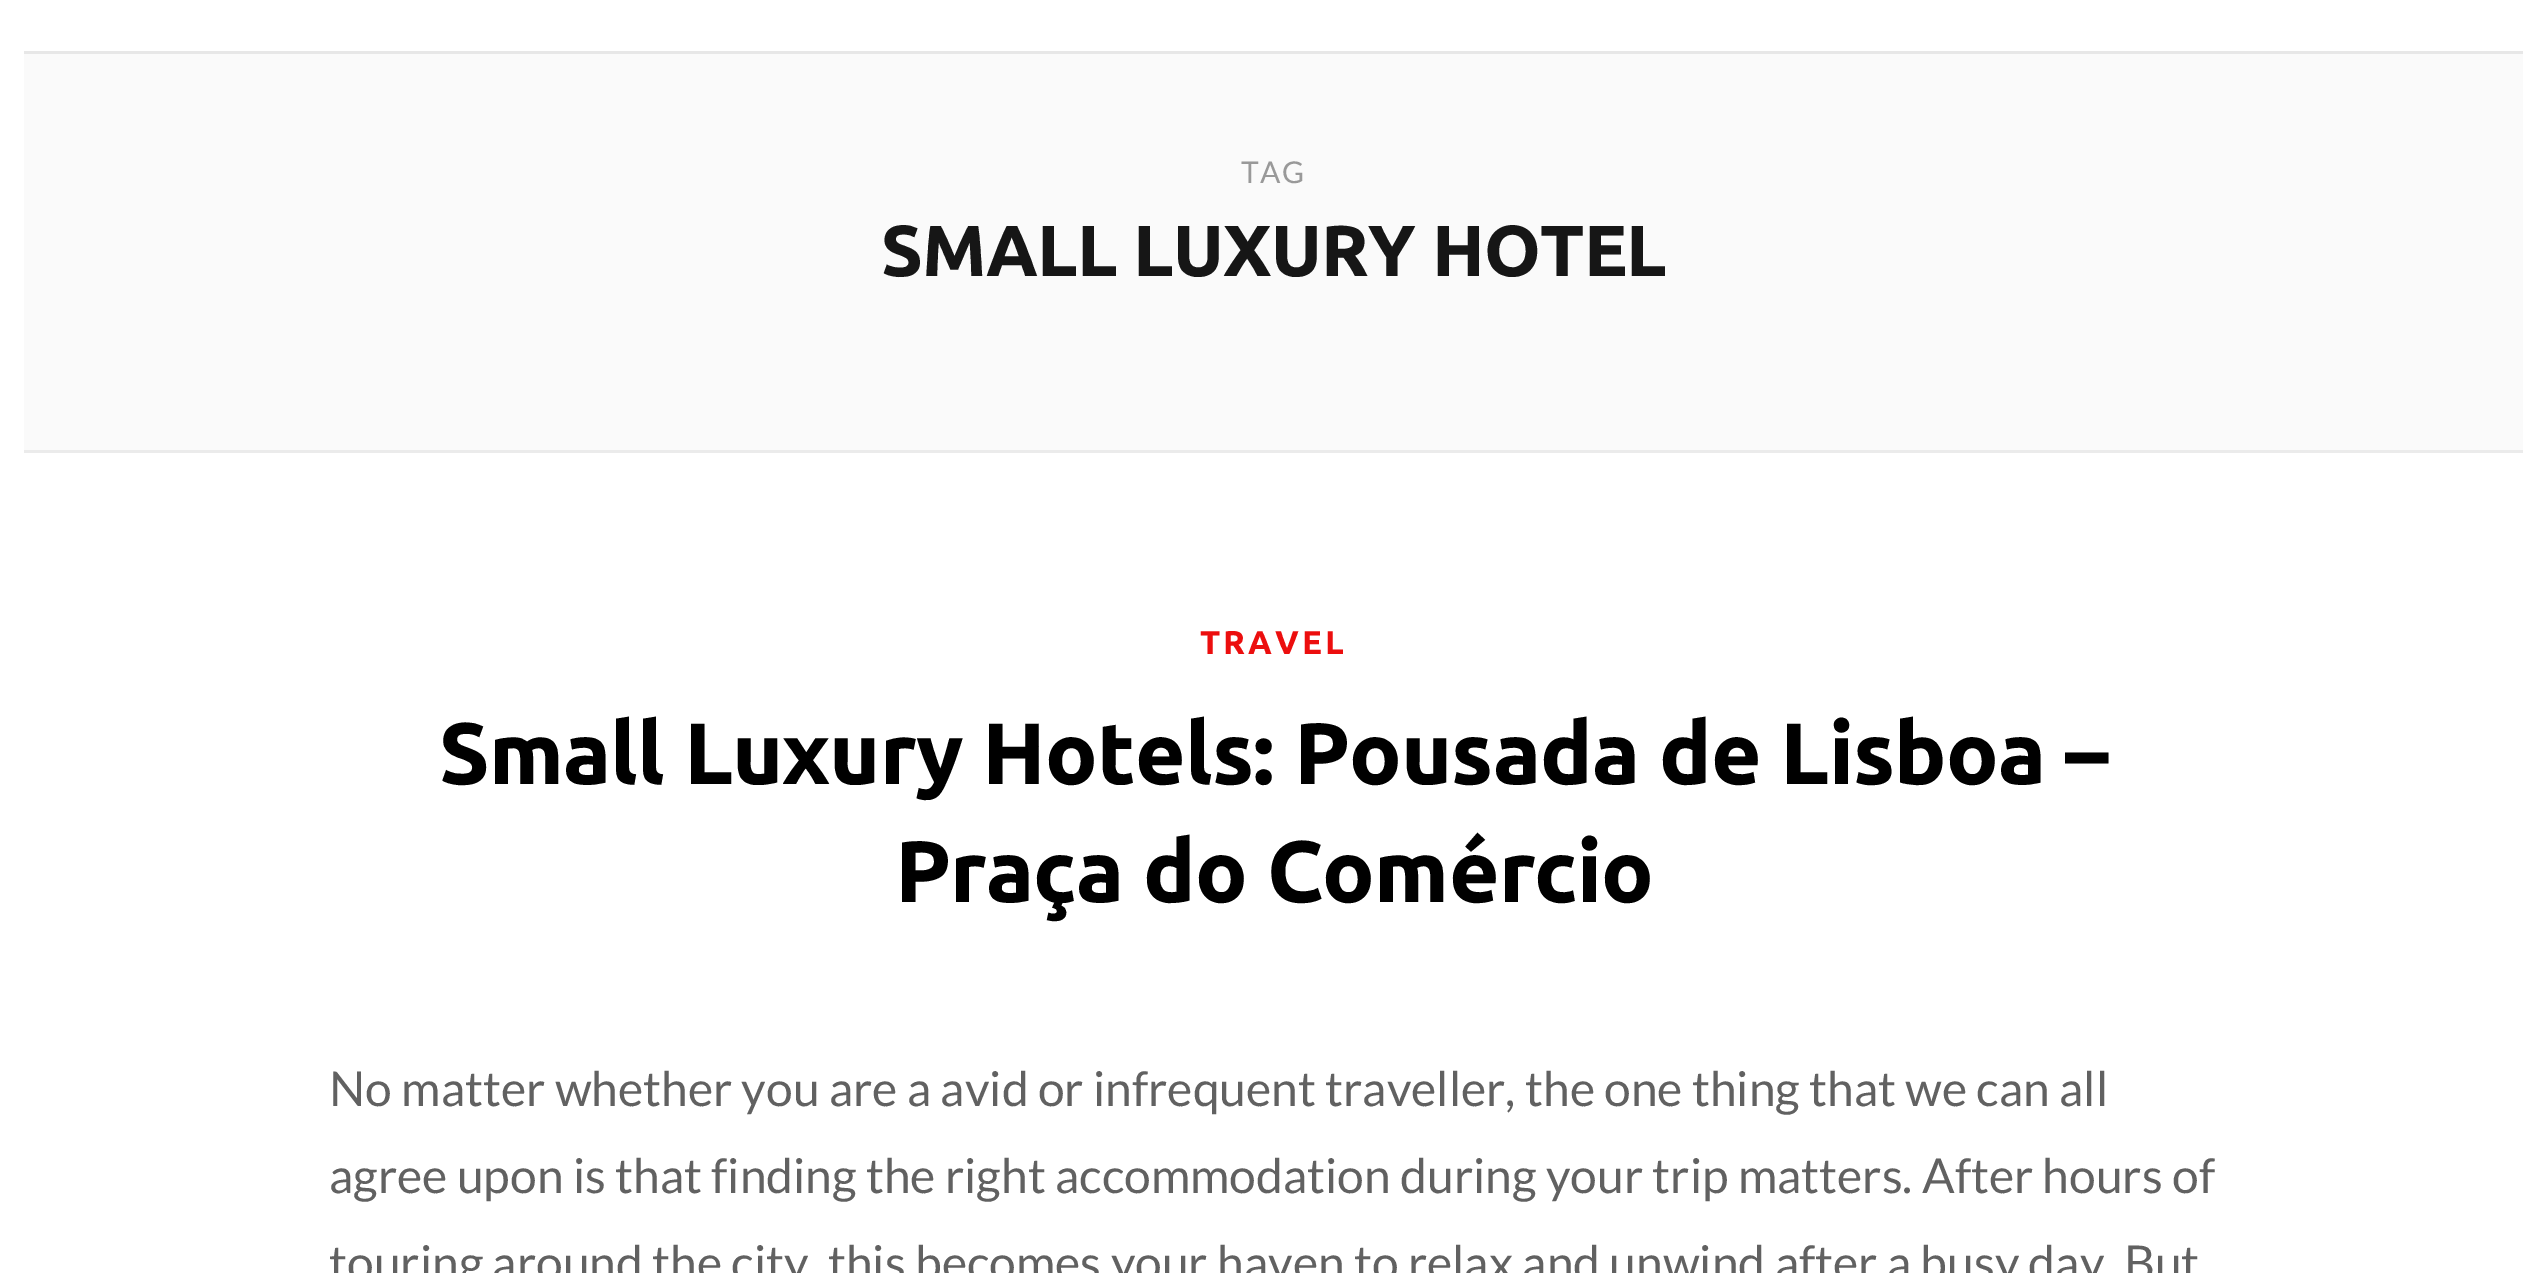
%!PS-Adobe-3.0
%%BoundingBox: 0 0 2546 1273
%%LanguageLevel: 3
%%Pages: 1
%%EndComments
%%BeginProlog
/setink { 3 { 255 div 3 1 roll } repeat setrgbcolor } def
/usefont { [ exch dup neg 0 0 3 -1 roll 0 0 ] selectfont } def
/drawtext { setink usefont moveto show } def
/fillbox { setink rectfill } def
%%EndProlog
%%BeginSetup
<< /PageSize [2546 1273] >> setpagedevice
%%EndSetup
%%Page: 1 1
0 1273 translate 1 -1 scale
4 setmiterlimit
0 0 2546 1273 255 255 255 fillbox
24 51 2499 3 231 231 231 fillbox
24 54 2499 396 250 250 250 fillbox
24 450 2499 3 235 235 235 fillbox
/Lato-Regular 30 usefont
153 153 153 setink
1241 183 moveto 1.5 0 (TAG) ashow
/Ubuntu-Bold 72 usefont
22 22 22 setink
881 276 moveto -0.75 0 (SMALL LUXURY HOTEL) ashow
/Ubuntu-Bold 33 usefont
236 14 14 setink
1200 654 moveto 3 0 (TRAVEL) ashow
/Ubuntu-Bold 87 usefont
0 0 0 setink
439 784 moveto -0.85 0 (Small Luxury Hotels: Pousada de Lisboa –) ashow
895 902 moveto -0.85 0 (Praça do Comércio) ashow
(No matter whether you are a avid or infrequent traveller, the one thing that we can all) 329 1106 /Lato-Regular 48 97 97 97 drawtext
(agree upon is that finding the right accommodation during your trip matters. After hours of) 329 1193 /Lato-Regular 48 97 97 97 drawtext
(touring around the city, this becomes your haven to relax and unwind after a busy day. But) 329 1280 /Lato-Regular 48 97 97 97 drawtext
showpage
%%EOF
